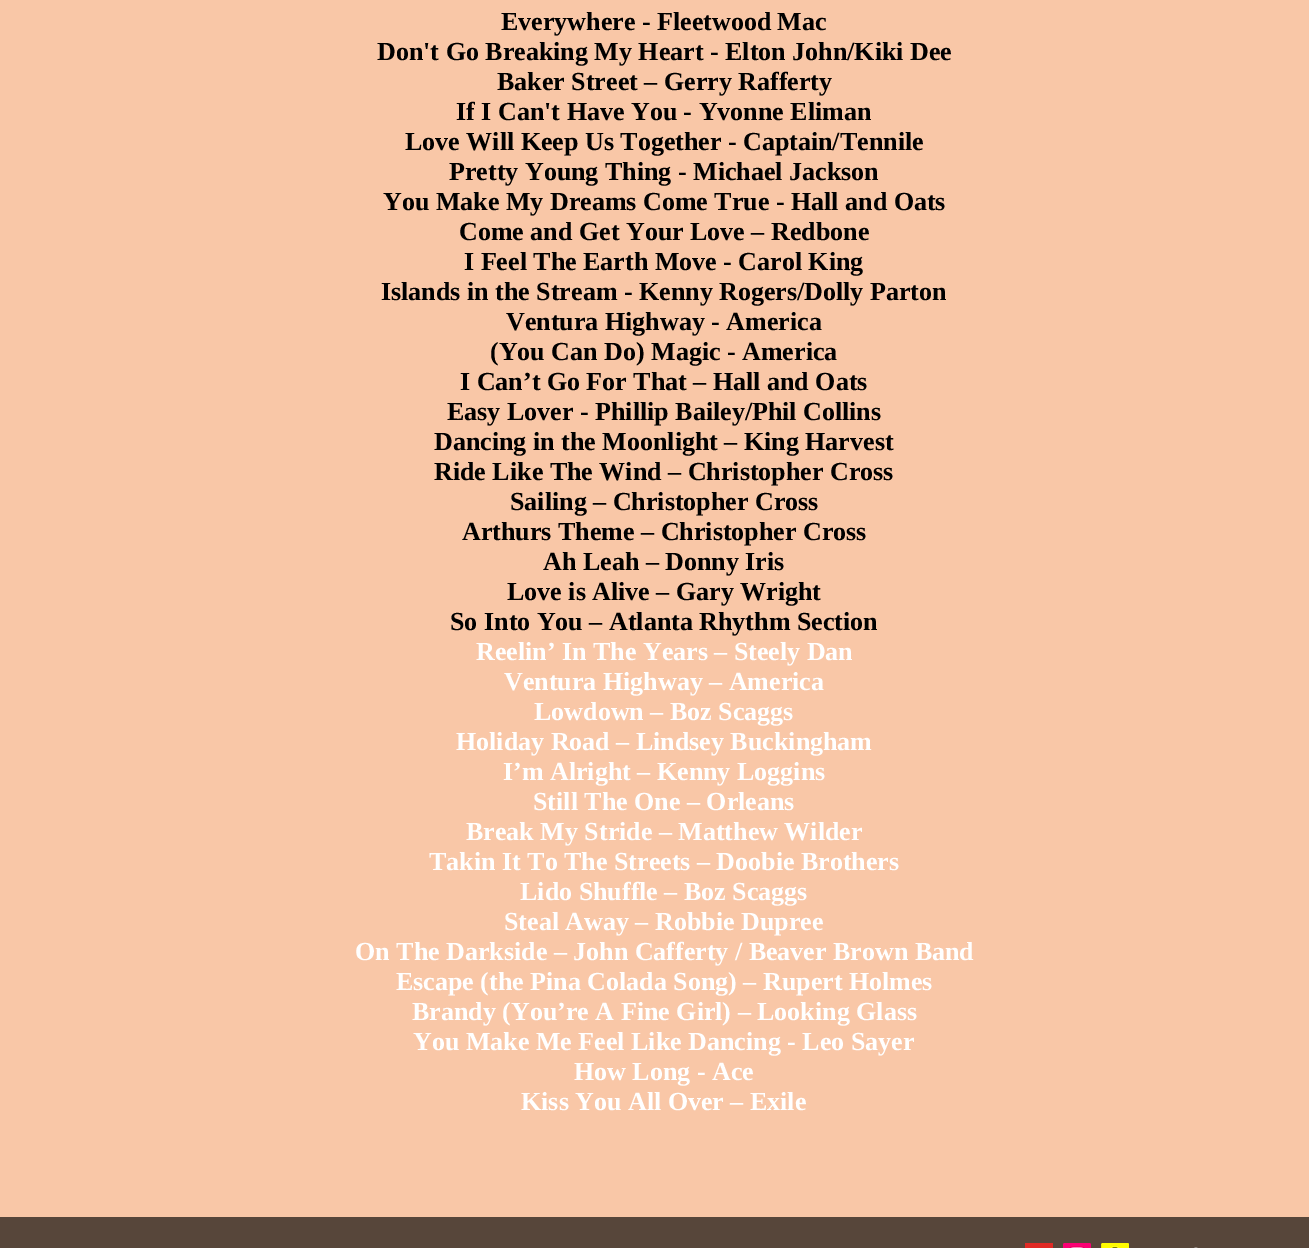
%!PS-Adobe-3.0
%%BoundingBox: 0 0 1309 1248
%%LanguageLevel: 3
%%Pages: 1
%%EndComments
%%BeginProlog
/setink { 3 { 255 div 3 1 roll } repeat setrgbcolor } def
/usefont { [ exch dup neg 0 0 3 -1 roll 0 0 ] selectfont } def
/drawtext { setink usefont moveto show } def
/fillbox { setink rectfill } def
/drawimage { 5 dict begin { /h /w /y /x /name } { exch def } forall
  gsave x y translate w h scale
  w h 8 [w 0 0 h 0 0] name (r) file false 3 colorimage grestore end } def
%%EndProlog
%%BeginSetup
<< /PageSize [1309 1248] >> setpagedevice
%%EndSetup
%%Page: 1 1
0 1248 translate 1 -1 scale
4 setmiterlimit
0 0 1309 1248 249 199 167 fillbox
(Everywhere - Fleetwood Mac) 501 30 /LiberationSerif-Bold 26 0 0 0 drawtext
(Don't Go Breaking My Heart - Elton John/Kiki Dee) 377 60 /LiberationSerif-Bold 26 0 0 0 drawtext
(Baker Street – Gerry Rafferty) 497 90 /LiberationSerif-Bold 26 0 0 0 drawtext
(If I Can't Have You - Yvonne Eliman) 456 120 /LiberationSerif-Bold 26 0 0 0 drawtext
(Love Will Keep Us Together - Captain/Tennile) 405 150 /LiberationSerif-Bold 26 0 0 0 drawtext
(Pretty Young Thing - Michael Jackson) 449 180 /LiberationSerif-Bold 26 0 0 0 drawtext
(You Make My Dreams Come True - Hall and Oats) 383 210 /LiberationSerif-Bold 26 0 0 0 drawtext
(Come and Get Your Love – Redbone) 459 240 /LiberationSerif-Bold 26 0 0 0 drawtext
(I Feel The Earth Move - Carol King) 464 270 /LiberationSerif-Bold 26 0 0 0 drawtext
(Islands in the Stream - Kenny Rogers/Dolly Parton) 381 300 /LiberationSerif-Bold 26 0 0 0 drawtext
(Ventura Highway - America) 506 330 /LiberationSerif-Bold 26 0 0 0 drawtext
(\(You Can Do\) Magic - America) 490 360 /LiberationSerif-Bold 26 0 0 0 drawtext
(I Can’t Go For That – Hall and Oats) 460 390 /LiberationSerif-Bold 26 0 0 0 drawtext
(Easy Lover - Phillip Bailey/Phil Collins) 447 420 /LiberationSerif-Bold 26 0 0 0 drawtext
(Dancing in the Moonlight – King Harvest) 434 450 /LiberationSerif-Bold 26 0 0 0 drawtext
(Ride Like The Wind – Christopher Cross) 434 480 /LiberationSerif-Bold 26 0 0 0 drawtext
(Sailing – Christopher Cross) 510 510 /LiberationSerif-Bold 26 0 0 0 drawtext
(Arthurs Theme – Christopher Cross) 462 540 /LiberationSerif-Bold 26 0 0 0 drawtext
(Ah Leah – Donny Iris) 543 570 /LiberationSerif-Bold 26 0 0 0 drawtext
(Love is Alive – Gary Wright) 507 600 /LiberationSerif-Bold 26 0 0 0 drawtext
(So Into You – Atlanta Rhythm Section) 450 630 /LiberationSerif-Bold 26 0 0 0 drawtext
(Reelin’ In The Years – Steely Dan) 476 660 /LiberationSerif-Bold 26 255 255 255 drawtext
(Ventura Highway – America) 504 690 /LiberationSerif-Bold 26 255 255 255 drawtext
(Lowdown – Boz Scaggs) 534 720 /LiberationSerif-Bold 26 255 255 255 drawtext
(Holiday Road – Lindsey Buckingham) 456 750 /LiberationSerif-Bold 26 255 255 255 drawtext
(I’m Alright – Kenny Loggins) 503 780 /LiberationSerif-Bold 26 255 255 255 drawtext
(Still The One – Orleans) 533 810 /LiberationSerif-Bold 26 255 255 255 drawtext
(Break My Stride – Matthew Wilder) 466 840 /LiberationSerif-Bold 26 255 255 255 drawtext
(Takin It To The Streets – Doobie Brothers) 429 870 /LiberationSerif-Bold 26 255 255 255 drawtext
(Lido Shuffle – Boz Scaggs) 520 900 /LiberationSerif-Bold 26 255 255 255 drawtext
(Steal Away – Robbie Dupree) 504 930 /LiberationSerif-Bold 26 255 255 255 drawtext
(On The Darkside – John Cafferty / Beaver Brown Band) 355 960 /LiberationSerif-Bold 26 255 255 255 drawtext
(Escape \(the Pina Colada Song\) – Rupert Holmes) 396 990 /LiberationSerif-Bold 26 255 255 255 drawtext
(Brandy \(You’re A Fine Girl\) – Looking Glass) 412 1020 /LiberationSerif-Bold 26 255 255 255 drawtext
(You Make Me Feel Like Dancing - Leo Sayer) 413 1050 /LiberationSerif-Bold 26 255 255 255 drawtext
(How Long - Ace) 574 1080 /LiberationSerif-Bold 26 255 255 255 drawtext
(Kiss You All Over – Exile) 521 1110 /LiberationSerif-Bold 26 255 255 255 drawtext
0 1217 1309 31 87 70 58 fillbox
1025 1243 28 5 224 42 37 fillbox
(assets/img1.rgb) 1063 1243 28 5 drawimage
(assets/img2.rgb) 1101 1243 28 5 drawimage
(assets/img3.rgb) 1194 1247 4 1 drawimage
showpage
%%EOF
